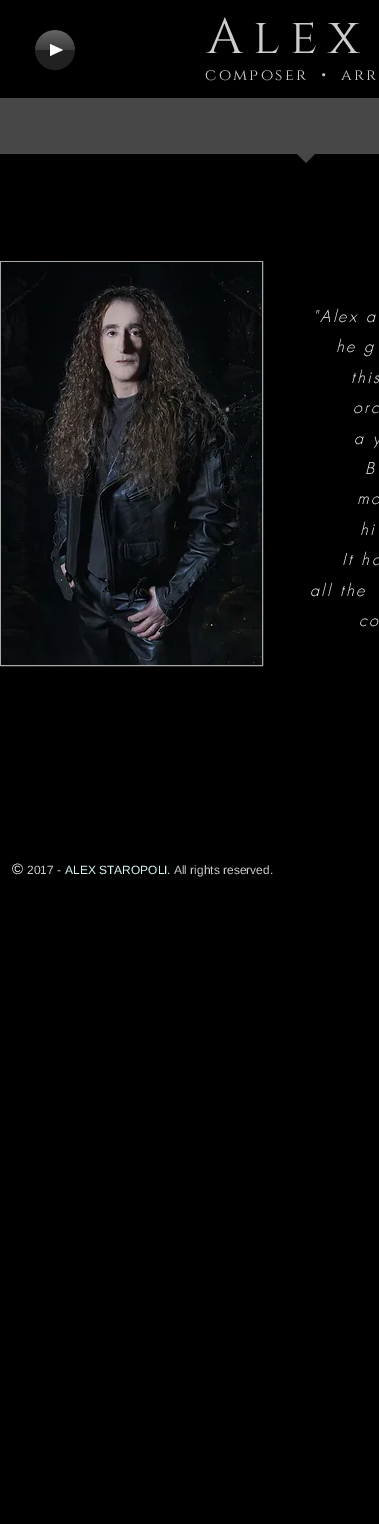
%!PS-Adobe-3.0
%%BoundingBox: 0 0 379 1524
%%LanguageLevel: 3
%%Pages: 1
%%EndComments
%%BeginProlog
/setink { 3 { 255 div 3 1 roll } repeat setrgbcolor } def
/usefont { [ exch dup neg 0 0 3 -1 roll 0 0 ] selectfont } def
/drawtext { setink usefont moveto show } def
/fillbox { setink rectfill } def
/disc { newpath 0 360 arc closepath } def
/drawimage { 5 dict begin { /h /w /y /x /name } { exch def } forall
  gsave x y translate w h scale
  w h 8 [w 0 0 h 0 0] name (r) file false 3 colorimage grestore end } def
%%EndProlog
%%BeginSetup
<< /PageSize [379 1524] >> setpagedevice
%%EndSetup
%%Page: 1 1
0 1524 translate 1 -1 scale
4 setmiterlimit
0 0 379 1524 0 0 0 fillbox
33 33 33 setink
55 50 20 disc fill
(assets/img1.rgb) 35 30 40 20 drawimage
255 255 255 setink
50 56 moveto 50 44 lineto 63 50 lineto closepath fill
/Cinzel-Regular 50 usefont
204 204 204 setink
207 53 moveto 10.5 0 (Alex) ashow
/Cinzel-Regular 16 usefont
205 80 moveto 2.25 0 (composer  •  arr) ashow
70 70 70 setink
295 152 moveto 317 152 lineto 306 163 lineto closepath fill
0 98 379 56 71 71 71 fillbox
169 169 169 setink
0.5 261.5 262 404 rectstroke
(assets/img2.rgb) 1 262 261 403 drawimage
/futura-LightItalic 16 usefont
255 255 255 setink
313 322 moveto 2.5 0 ("Alex a) ashow
336 352 moveto 2.5 0 (he g) ashow
351 383 moveto 2.5 0 (this) ashow
353 413 moveto 2.5 0 (orc) ashow
354 444 moveto 2.5 0 (a y) ashow
365 474 moveto 2.5 0 (B) ashow
357 504 moveto 2.5 0 (mo) ashow
360 535 moveto 2.5 0 (hi) ashow
342 565 moveto 2.5 0 (It ha) ashow
310 596 moveto 2.5 0 (all the) ashow
359 626 moveto 2.5 0 (co) ashow
(©) 12 874 /LiberationSans-Regular 15 255 255 255 drawtext
(2017 -) 27 874 /LiberationSans-Regular 12 204 204 204 drawtext
(ALEX STAROPOLI) 65 874 /LiberationSans-Regular 12 213 245 245 drawtext
(. All rights reserved.) 167 874 /LiberationSans-Regular 12 204 204 204 drawtext
showpage
%%EOF
